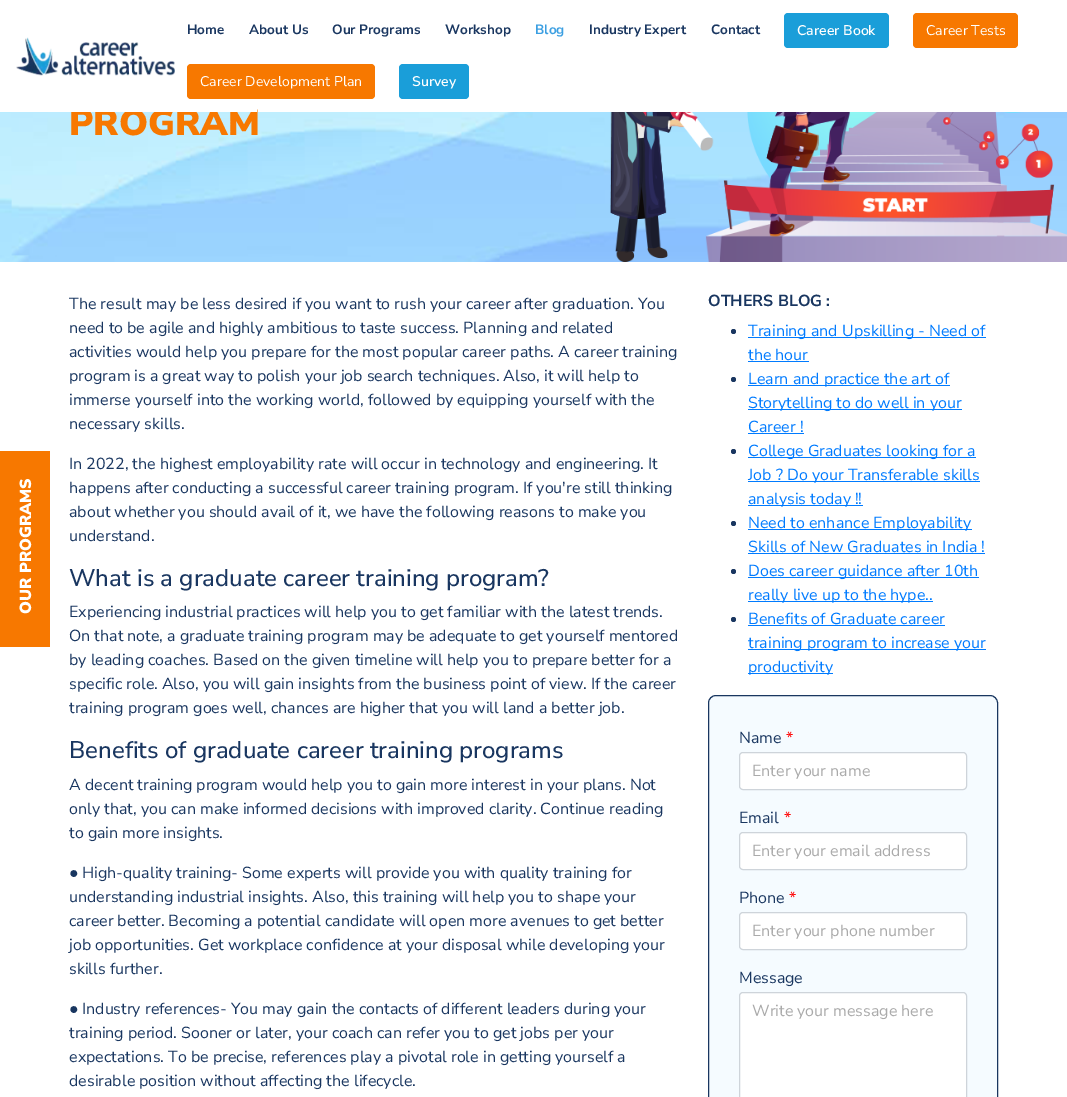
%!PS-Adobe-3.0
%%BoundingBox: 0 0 1067 1097
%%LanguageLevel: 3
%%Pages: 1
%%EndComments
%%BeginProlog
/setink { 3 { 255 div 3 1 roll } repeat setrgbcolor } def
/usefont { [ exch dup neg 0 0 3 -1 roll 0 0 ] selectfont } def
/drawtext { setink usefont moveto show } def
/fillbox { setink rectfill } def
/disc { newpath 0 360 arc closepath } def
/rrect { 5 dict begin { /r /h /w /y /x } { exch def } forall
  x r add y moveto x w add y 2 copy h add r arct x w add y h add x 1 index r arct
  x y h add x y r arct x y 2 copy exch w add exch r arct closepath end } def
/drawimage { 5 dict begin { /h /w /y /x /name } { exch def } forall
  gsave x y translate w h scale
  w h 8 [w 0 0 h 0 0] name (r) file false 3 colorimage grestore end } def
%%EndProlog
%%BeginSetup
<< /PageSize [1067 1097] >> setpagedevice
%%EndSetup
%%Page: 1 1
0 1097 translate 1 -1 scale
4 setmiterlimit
0 0 1067 1097 255 255 255 fillbox
(assets/img2.rgb) 0 112 1067 150 drawimage
(PROGRAM) 69 135 /NunitoSans-Black 36 247 120 0 drawtext
70 109 187 3 255 255 255 fillbox
(assets/img1.rgb) 16 37 159 39 drawimage
(Home) 187 34 /NunitoSans-Bold 13.5 25 54 96 drawtext
(About Us) 249 34 /NunitoSans-Bold 13.5 25 54 96 drawtext
(Our Programs) 332 34 /NunitoSans-Bold 13.5 25 54 96 drawtext
(Workshop) 445 34 /NunitoSans-Bold 13.5 25 54 96 drawtext
(Blog) 535 34 /NunitoSans-Bold 13.5 59 159 226 drawtext
(Industry Expert) 589 34 /NunitoSans-Bold 13.5 25 54 96 drawtext
(Contact) 711 34 /NunitoSans-Bold 13.5 25 54 96 drawtext
26 158 217 setink
784 13 105 35 4 rrect fill
(Career Book) 797 35 /NunitoSans-SemiBold 14 255 255 255 drawtext
247 120 0 setink
913 13 105 35 4 rrect fill
(Career Tests) 926 35 /NunitoSans-Regular 14 255 255 255 drawtext
247 120 0 setink
187 64 188 35 4 rrect fill
(Career Development Plan) 200 86 /NunitoSans-Regular 14 255 255 255 drawtext
26 158 217 setink
399 64 70 35 4 rrect fill
(Survey) 412 86 /NunitoSans-SemiBold 14 255 255 255 drawtext
0 451 50 196 247 120 0 fillbox
/NunitoSans-Black 16 usefont
255 255 255 setink
gsave 31 614 translate -90 rotate 0 0 moveto (OUR PROGRAMS) show grestore
(The result may be less desired if you want to rush your career after graduation. You) 69 309 /NunitoSans-Regular 16 25 54 96 drawtext
(need to be agile and highly ambitious to taste success. Planning and related) 69 333 /NunitoSans-Regular 16 25 54 96 drawtext
(activities would help you prepare for the most popular career paths. A career training) 69 357 /NunitoSans-Regular 16 25 54 96 drawtext
(program is a great way to polish your job search techniques. Also, it will help to) 69 381 /NunitoSans-Regular 16 25 54 96 drawtext
(immerse yourself into the working world, followed by equipping yourself with the) 69 405 /NunitoSans-Regular 16 25 54 96 drawtext
(necessary skills.) 69 429 /NunitoSans-Regular 16 25 54 96 drawtext
(In 2022, the highest employability rate will occur in technology and engineering. It) 69 469 /NunitoSans-Regular 16 25 54 96 drawtext
(happens after conducting a successful career training program. If you're still thinking) 69 493 /NunitoSans-Regular 16 25 54 96 drawtext
(about whether you should avail of it, we have the following reasons to make you) 69 517 /NunitoSans-Regular 16 25 54 96 drawtext
(understand.) 69 541 /NunitoSans-Regular 16 25 54 96 drawtext
(What is a graduate career training program?) 69 586 /NunitoSans-Medium 24 25 54 96 drawtext
(Experiencing industrial practices will help you to get familiar with the latest trends.) 69 617 /NunitoSans-Regular 16 25 54 96 drawtext
(On that note, a graduate training program may be adequate to get yourself mentored) 69 641 /NunitoSans-Regular 16 25 54 96 drawtext
(by leading coaches. Based on the given timeline will help you to prepare better for a) 69 665 /NunitoSans-Regular 16 25 54 96 drawtext
(specific role. Also, you will gain insights from the business point of view. If the career) 69 689 /NunitoSans-Regular 16 25 54 96 drawtext
(training program goes well, chances are higher that you will land a better job.) 69 713 /NunitoSans-Regular 16 25 54 96 drawtext
(Benefits of graduate career training programs) 69 758 /NunitoSans-Medium 24 25 54 96 drawtext
(A decent training program would help you to gain more interest in your plans. Not) 69 790 /NunitoSans-Regular 16 25 54 96 drawtext
(only that, you can make informed decisions with improved clarity. Continue reading) 69 814 /NunitoSans-Regular 16 25 54 96 drawtext
(to gain more insights.) 69 838 /NunitoSans-Regular 16 25 54 96 drawtext
(●) 69 878 /LiberationSans-Regular 16 25 54 96 drawtext
(High-quality training- Some experts will provide you with quality training for) 82 878 /NunitoSans-Regular 16 25 54 96 drawtext
(understanding industrial insights. Also, this training will help you to shape your) 69 902 /NunitoSans-Regular 16 25 54 96 drawtext
(career better. Becoming a potential candidate will open more avenues to get better) 69 926 /NunitoSans-Regular 16 25 54 96 drawtext
(job opportunities. Get workplace confidence at your disposal while developing your) 69 950 /NunitoSans-Regular 16 25 54 96 drawtext
(skills further.) 69 974 /NunitoSans-Regular 16 25 54 96 drawtext
(●) 69 1014 /LiberationSans-Regular 16 25 54 96 drawtext
(Industry references- You may gain the contacts of different leaders during your) 82 1014 /NunitoSans-Regular 16 25 54 96 drawtext
(training period. Sooner or later, your coach can refer you to get jobs per your) 69 1038 /NunitoSans-Regular 16 25 54 96 drawtext
(expectations. To be precise, references play a pivotal role in getting yourself a) 69 1062 /NunitoSans-Regular 16 25 54 96 drawtext
(desirable position without affecting the lifecycle.) 69 1086 /NunitoSans-Regular 16 25 54 96 drawtext
(OTHERS BLOG :) 708 306 /NunitoSans-Bold 16 25 54 96 drawtext
733.5 331.5 2.5 disc fill
748 337 238 1 0 123 255 fillbox
(Training and Upskilling - Need of) 748 336 /NunitoSans-Regular 16 0 123 255 drawtext
(the hour) 748 360 /NunitoSans-Regular 16 0 123 255 drawtext
748 361 61 1 0 123 255 fillbox
25 54 96 setink
733.5 379.5 2.5 disc fill
748 385 202 1 0 123 255 fillbox
(Learn and practice the art of) 748 384 /NunitoSans-Regular 16 0 123 255 drawtext
748 409 214 1 0 123 255 fillbox
(Storytelling to do well in your) 748 408 /NunitoSans-Regular 16 0 123 255 drawtext
(Career !) 748 432 /NunitoSans-Regular 16 0 123 255 drawtext
748 433 56 1 0 123 255 fillbox
25 54 96 setink
733.5 451.5 2.5 disc fill
748 457 228 1 0 123 255 fillbox
(College Graduates looking for a) 748 456 /NunitoSans-Regular 16 0 123 255 drawtext
748 481 232 1 0 123 255 fillbox
(Job ? Do your Transferable skills) 748 480 /NunitoSans-Regular 16 0 123 255 drawtext
748 505 115 1 0 123 255 fillbox
(analysis today !!) 748 504 /NunitoSans-Regular 16 0 123 255 drawtext
25 54 96 setink
733.5 523.5 2.5 disc fill
748 529 224 1 0 123 255 fillbox
(Need to enhance Employability) 748 528 /NunitoSans-Regular 16 0 123 255 drawtext
(Skills of New Graduates in India !) 748 552 /NunitoSans-Regular 16 0 123 255 drawtext
748 553 237 1 0 123 255 fillbox
25 54 96 setink
733.5 571.5 2.5 disc fill
748 577 231 1 0 123 255 fillbox
(Does career guidance after 10th) 748 576 /NunitoSans-Regular 16 0 123 255 drawtext
748 601 185 1 0 123 255 fillbox
(really live up to the hype..) 748 600 /NunitoSans-Regular 16 0 123 255 drawtext
25 54 96 setink
733.5 619.5 2.5 disc fill
(Benefits of Graduate career) 748 624 /NunitoSans-Regular 16 0 123 255 drawtext
748 625 197 1 0 123 255 fillbox
748 649 238 1 0 123 255 fillbox
(training program to increase your) 748 648 /NunitoSans-Regular 16 0 123 255 drawtext
748 673 85 1 0 123 255 fillbox
(productivity) 748 672 /NunitoSans-Regular 16 0 123 255 drawtext
245 251 255 setink
708.5 695.5 289 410 7.5 rrect gsave fill grestore
25 54 96 setink
stroke
(Name) 739 743 /NunitoSans-Regular 16 25 54 96 drawtext
(*) 786 743 /NunitoSans-Regular 16 255 0 0 drawtext
255 255 255 setink
739.5 752.5 227 37 3.5 rrect gsave fill grestore
206 212 218 setink
stroke
(Enter your name) 752 776 /NunitoSans-Regular 16 170 170 170 drawtext
(Email) 739 823 /NunitoSans-Regular 16 25 54 96 drawtext
(*) 784 823 /NunitoSans-Regular 16 255 0 0 drawtext
255 255 255 setink
739.5 832.5 227 37 3.5 rrect gsave fill grestore
206 212 218 setink
stroke
(Enter your email address) 752 856 /NunitoSans-Regular 16 170 170 170 drawtext
(Phone) 739 903 /NunitoSans-Regular 16 25 54 96 drawtext
(*) 789 903 /NunitoSans-Regular 16 255 0 0 drawtext
255 255 255 setink
739.5 912.5 227 37 3.5 rrect gsave fill grestore
206 212 218 setink
stroke
(Enter your phone number) 752 936 /NunitoSans-Regular 16 170 170 170 drawtext
(Message) 739 983 /NunitoSans-Regular 16 25 54 96 drawtext
255 255 255 setink
740 993 226 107 3 rrect fill
206 212 218 setink
739.5 992.5 227 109 3.5 rrect stroke
(Write your message here) 752 1016 /NunitoSans-Regular 16 170 170 170 drawtext
showpage
%%EOF
